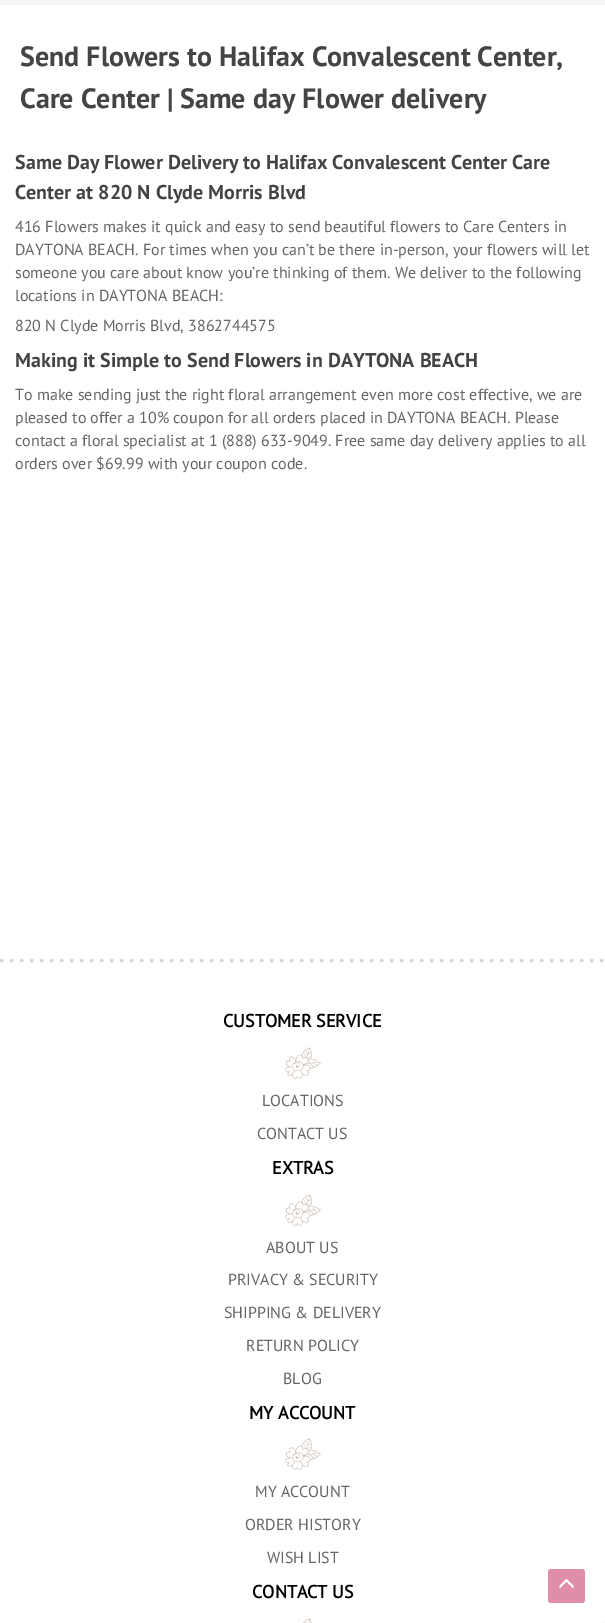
%!PS-Adobe-3.0
%%BoundingBox: 0 0 605 1623
%%LanguageLevel: 3
%%Pages: 1
%%EndComments
%%BeginProlog
/setink { 3 { 255 div 3 1 roll } repeat setrgbcolor } def
/usefont { [ exch dup neg 0 0 3 -1 roll 0 0 ] selectfont } def
/drawtext { setink usefont moveto show } def
/fillbox { setink rectfill } def
/rrect { 5 dict begin { /r /h /w /y /x } { exch def } forall
  x r add y moveto x w add y 2 copy h add r arct x w add y h add x 1 index r arct
  x y h add x y r arct x y 2 copy exch w add exch r arct closepath end } def
/drawimage { 5 dict begin { /h /w /y /x /name } { exch def } forall
  gsave x y translate w h scale
  w h 8 [w 0 0 h 0 0] name (r) file false 3 colorimage grestore end } def
%%EndProlog
%%BeginSetup
<< /PageSize [605 1623] >> setpagedevice
%%EndSetup
%%Page: 1 1
0 1623 translate 1 -1 scale
4 setmiterlimit
0 0 605 1623 255 255 255 fillbox
0 0 605 5 245 245 245 fillbox
(Send Flowers to Halifax Convalescent Center,) 20 66 /PTSans-Bold 28 68 68 68 drawtext
(Care Center | Same day Flower delivery) 20 108 /PTSans-Bold 28 68 68 68 drawtext
(Same Day Flower Delivery to Halifax Convalescent Center Care) 15 169 /PTSans-Bold 20 68 68 68 drawtext
(Center at 820 N Clyde Morris Blvd) 15 199 /PTSans-Bold 20 68 68 68 drawtext
(416 Flowers makes it quick and easy to send beautiful flowers to Care Centers in) 15 232 /PTSans-Regular 16 102 102 102 drawtext
(DAYTONA BEACH. For times when you can’t be there in-person, your flowers will let) 15 255 /PTSans-Regular 16 102 102 102 drawtext
(someone you care about know you’re thinking of them. We deliver to the following) 15 278 /PTSans-Regular 16 102 102 102 drawtext
(locations in DAYTONA BEACH:) 15 301 /PTSans-Regular 16 102 102 102 drawtext
(820 N Clyde Morris Blvd, 3862744575) 15 331 /PTSans-Regular 16 102 102 102 drawtext
(Making it Simple to Send Flowers in DAYTONA BEACH) 15 367 /PTSans-Bold 20 68 68 68 drawtext
(To make sending just the right floral arrangement even more cost effective, we are) 15 400 /PTSans-Regular 16 102 102 102 drawtext
(pleased to offer a 10% coupon for all orders placed in DAYTONA BEACH. Please) 15 423 /PTSans-Regular 16 102 102 102 drawtext
(contact a floral specialist at 1 \(888\) 633-9049. Free same day delivery applies to all) 15 446 /PTSans-Regular 16 102 102 102 drawtext
(orders over $69.99 with your coupon code.) 15 469 /PTSans-Regular 16 102 102 102 drawtext
(assets/img1.rgb) 0 958 604 5 drawimage
(assets/img2.rgb) 285 1047 36 32 drawimage
(CUSTOMER SERVICE) 223 1027 /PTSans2-Bold 18 0 0 0 drawtext
(LOCATIONS) 262 1106 /PTSans-Regular 16 102 102 102 drawtext
(CONTACT US) 257 1139 /PTSans-Regular 16 102 102 102 drawtext
(assets/img2.rgb) 285 1194 36 32 drawimage
(EXTRAS) 272 1174 /PTSans2-Bold 18 0 0 0 drawtext
(ABOUT US) 266 1253 /PTSans-Regular 16 102 102 102 drawtext
(PRIVACY & SECURITY) 228 1285 /PTSans-Regular 16 102 102 102 drawtext
(SHIPPING & DELIVERY) 224 1318 /PTSans-Regular 16 102 102 102 drawtext
(RETURN POLICY) 246 1351 /PTSans-Regular 16 102 102 102 drawtext
(BLOG) 283 1384 /PTSans-Regular 16 102 102 102 drawtext
(assets/img2.rgb) 285 1438 36 32 drawimage
(MY ACCOUNT) 249 1419 /PTSans2-Bold 18 0 0 0 drawtext
(MY ACCOUNT) 255 1497 /PTSans-Regular 16 102 102 102 drawtext
(ORDER HISTORY) 245 1530 /PTSans-Regular 16 102 102 102 drawtext
(WISH LIST) 267 1563 /PTSans-Regular 16 102 102 102 drawtext
(assets/img3.rgb) 303 1618 9 5 drawimage
(CONTACT US) 252 1598 /PTSans2-Bold 18 0 0 0 drawtext
224 142 168 setink
548 1569 37 34 3 rrect fill
(assets/img4.rgb) 559 1578 15 11 drawimage
603 1621 2 2 245 245 245 fillbox
showpage
%%EOF
